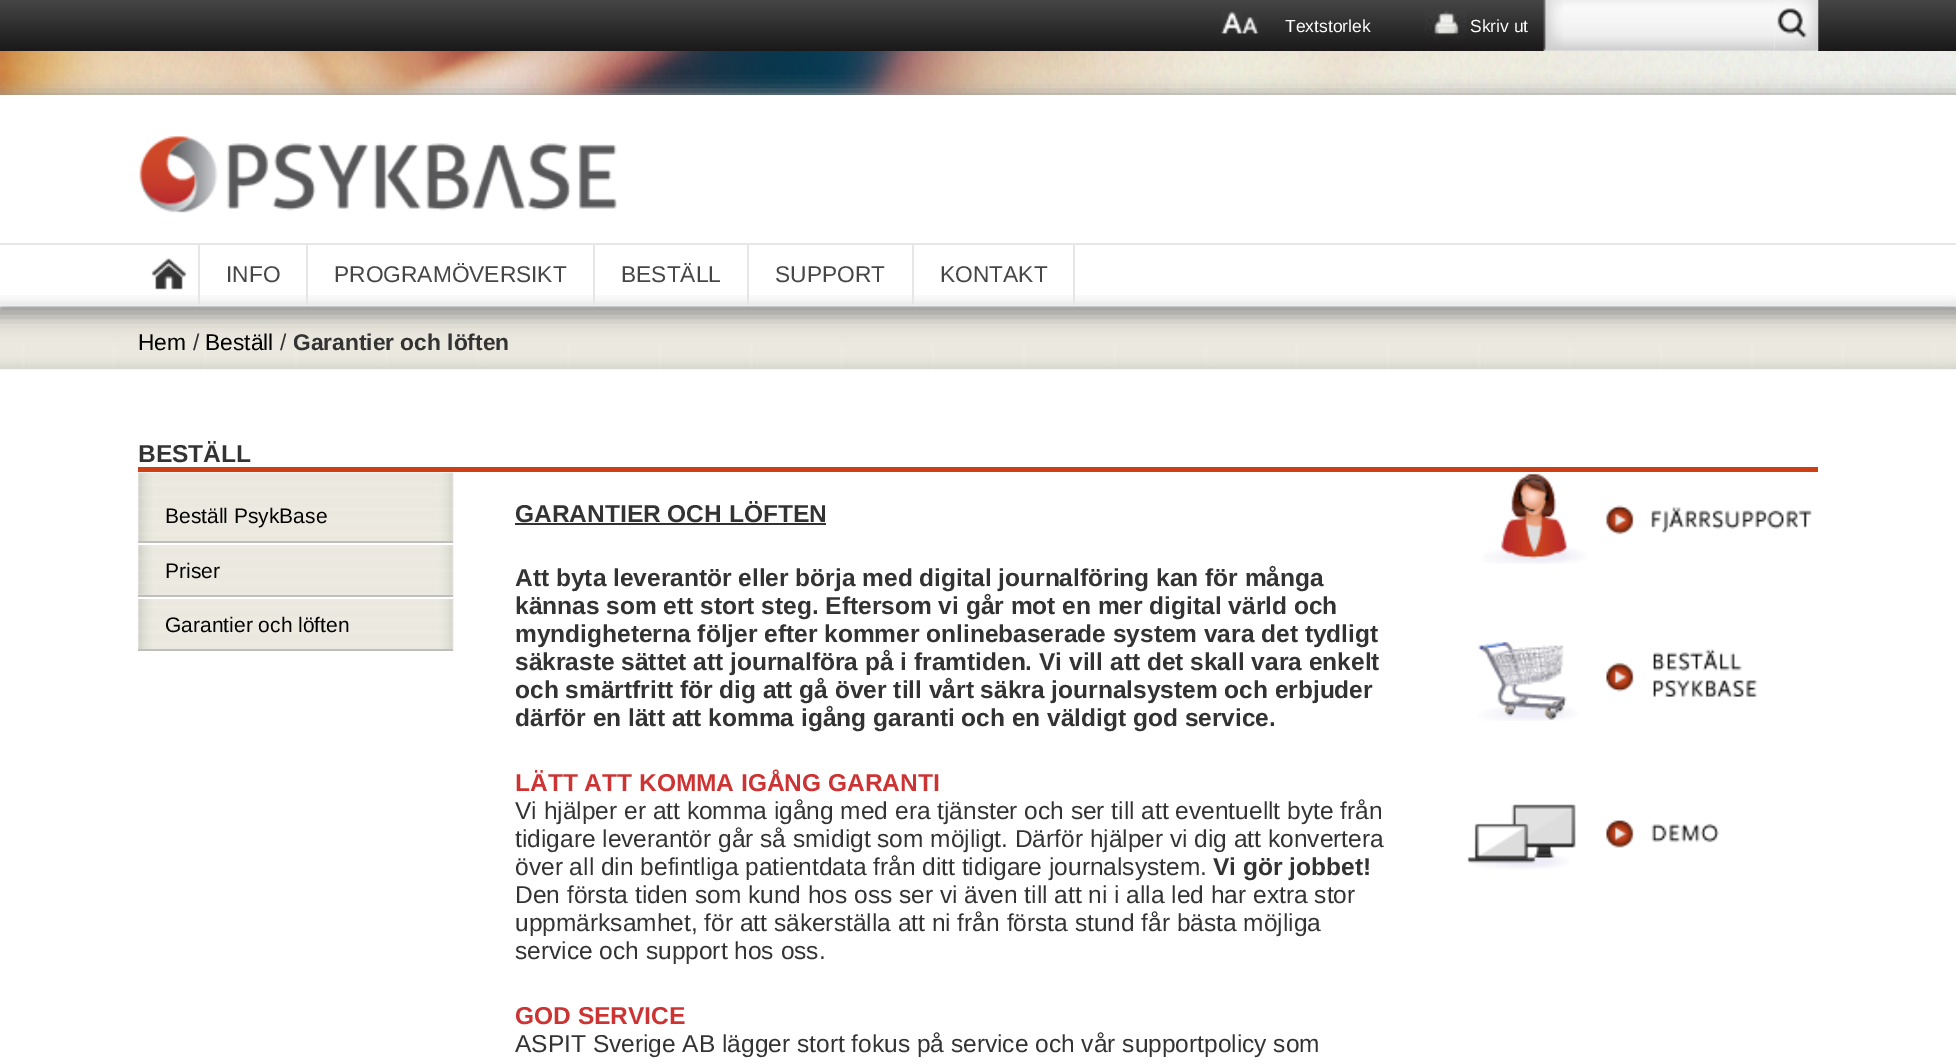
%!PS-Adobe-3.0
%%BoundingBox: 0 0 1956 1064
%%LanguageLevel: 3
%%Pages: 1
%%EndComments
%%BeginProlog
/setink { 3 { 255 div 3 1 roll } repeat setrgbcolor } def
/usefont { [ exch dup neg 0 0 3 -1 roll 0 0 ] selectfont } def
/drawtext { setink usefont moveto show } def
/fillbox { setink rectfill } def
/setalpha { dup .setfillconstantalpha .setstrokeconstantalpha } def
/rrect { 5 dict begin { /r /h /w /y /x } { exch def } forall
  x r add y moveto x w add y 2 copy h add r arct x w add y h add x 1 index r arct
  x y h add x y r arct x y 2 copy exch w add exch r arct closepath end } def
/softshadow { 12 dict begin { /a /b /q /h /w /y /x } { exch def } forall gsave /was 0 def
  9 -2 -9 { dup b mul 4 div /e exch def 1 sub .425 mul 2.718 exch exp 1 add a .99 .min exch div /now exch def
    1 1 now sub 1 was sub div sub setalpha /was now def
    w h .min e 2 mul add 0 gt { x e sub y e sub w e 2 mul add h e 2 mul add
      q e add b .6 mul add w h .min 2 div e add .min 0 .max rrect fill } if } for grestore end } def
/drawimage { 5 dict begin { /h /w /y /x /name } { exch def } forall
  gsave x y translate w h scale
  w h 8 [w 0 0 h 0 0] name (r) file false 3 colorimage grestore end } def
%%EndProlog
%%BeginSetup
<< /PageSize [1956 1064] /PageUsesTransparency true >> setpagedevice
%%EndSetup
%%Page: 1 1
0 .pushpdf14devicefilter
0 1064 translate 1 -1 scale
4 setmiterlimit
0 0 1956 1064 255 255 255 fillbox
(assets/img1.rgb) 0 51 1956 44 drawimage
gsave 0 0 moveto 1956 0 lineto 1956 51 lineto 0 51 lineto closepath clip newpath
<< /ShadingType 2 /ColorSpace /DeviceRGB /Coords [978 0 978 51] /Extend [true true] /Function << /FunctionType 2 /Domain [0 1] /C0 [0.275 0.275 0.275] /C1 [0.102 0.094 0.098] /N 1 >> >> shfill grestore
(assets/img3.rgb) 1242 17 17 17 drawimage
(assets/img2.rgb) 1221 11 22 23 drawimage
(Textstorlek) 1285 32 /LiberationSans-Regular 17.5 255 255 255 drawtext
(assets/img4.rgb) 1425 10 42 31 drawimage
(Skriv ut) 1470 32 /LiberationSans-Regular 17.5 255 255 255 drawtext
1544 0 231 51 255 255 255 fillbox
(assets/img5.rgb) 1543 0 232 51 drawimage
(assets/img6.rgb) 1774 0 45 51 drawimage
0 308 1956 35 234 231 222 fillbox
(assets/img10.rgb) 0 343 1956 27 drawimage
153 153 153 setink
-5 95 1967 222 0 9 1 softshadow
0 95 1956 200 255 255 255 fillbox
(assets/img7.rgb) 139 136 478 77 drawimage
(assets/img8.rgb) 0 295 1956 12 drawimage
0 243 1956 2 230 230 230 fillbox
198 243 2 62 230 230 230 fillbox
(assets/img9.rgb) 151 258 35 32 drawimage
306 243 2 62 230 230 230 fillbox
(INFO) 226 282 /LiberationSans-Regular 22.75 70 70 70 drawtext
593 243 2 62 230 230 230 fillbox
(PROGRAMÖVERSIKT) 334 282 /LiberationSans-Regular 22.75 70 70 70 drawtext
747 243 2 62 230 230 230 fillbox
(BESTÄLL) 621 282 /LiberationSans-Regular 22.75 70 70 70 drawtext
912 243 2 62 230 230 230 fillbox
(SUPPORT) 775 282 /LiberationSans-Regular 22.75 70 70 70 drawtext
1073 243 2 62 230 230 230 fillbox
(KONTAKT) 940 282 /LiberationSans-Regular 22.75 70 70 70 drawtext
(Hem) 138 350 /LiberationSans-Regular 22.75 3 3 1 drawtext
(/) 193 350 /LiberationSans-Regular 22.75 51 51 51 drawtext
(Beställ) 205 350 /LiberationSans-Regular 22.75 3 3 1 drawtext
(/) 280 350 /LiberationSans-Regular 22.75 51 51 51 drawtext
(Garantier och löften) 293 350 /LiberationSans-Bold 22.75 51 51 51 drawtext
138 467 1680 5 205 64 22 fillbox
(BESTÄLL) 138 462 /LiberationSans-Bold 24.5 51 51 51 drawtext
(assets/img11.rgb) 138 472 316 179 drawimage
138 541 315 2 190 190 188 fillbox
(Beställ PsykBase) 165 523 /LiberationSans-Regular 21 3 3 1 drawtext
138 543 315 2 255 255 255 fillbox
138 595 315 2 190 190 188 fillbox
(Priser) 165 578 /LiberationSans-Regular 21 3 3 1 drawtext
138 597 315 2 255 255 255 fillbox
138 649 315 2 190 190 188 fillbox
(Garantier och löften) 165 632 /LiberationSans-Regular 21 3 3 1 drawtext
(GARANTIER OCH LÖFTEN) 515 522 /LiberationSans-Bold 24.5 51 51 51 drawtext
515 523 311 2 51 51 51 fillbox
(Att byta leverantör eller börja med digital journalföring kan för många) 515 586 /LiberationSans-Bold 24.5 51 51 51 drawtext
(kännas som ett stort steg. Eftersom vi går mot en mer digital värld och) 515 614 /LiberationSans-Bold 24.5 51 51 51 drawtext
(myndigheterna följer efter kommer onlinebaserade system vara det tydligt) 515 642 /LiberationSans-Bold 24.5 51 51 51 drawtext
(säkraste sättet att journalföra på i framtiden. Vi vill att det skall vara enkelt) 515 670 /LiberationSans-Bold 24.5 51 51 51 drawtext
(och smärtfritt för dig att gå över till vårt säkra journalsystem och erbjuder) 515 698 /LiberationSans-Bold 24.5 51 51 51 drawtext
(därför en lätt att komma igång garanti och en väldigt god service.) 515 726 /LiberationSans-Bold 24.5 51 51 51 drawtext
(LÄTT ATT KOMMA IGÅNG GARANTI) 515 791 /LiberationSans-Bold 24.5 204 51 51 drawtext
(Vi hjälper er att komma igång med era tjänster och ser till att eventuellt byte från) 515 819 /LiberationSans-Regular 24.5 51 51 51 drawtext
(tidigare leverantör går så smidigt som möjligt. Därför hjälper vi dig att konvertera) 515 847 /LiberationSans-Regular 24.5 51 51 51 drawtext
(över all din befintliga patientdata från ditt tidigare journalsystem.) 515 875 /LiberationSans-Regular 24.5 51 51 51 drawtext
(Vi gör jobbet!) 1213 875 /LiberationSans-Bold 24.5 51 51 51 drawtext
(Den första tiden som kund hos oss ser vi även till att ni i alla led har extra stor) 515 903 /LiberationSans-Regular 24.5 51 51 51 drawtext
(uppmärksamhet, för att säkerställa att ni från första stund får bästa möjliga) 515 931 /LiberationSans-Regular 24.5 51 51 51 drawtext
(service och support hos oss.) 515 959 /LiberationSans-Regular 24.5 51 51 51 drawtext
(GOD SERVICE) 515 1024 /LiberationSans-Bold 24.5 204 51 51 drawtext
(ASPIT Sverige AB lägger stort fokus på service och vår supportpolicy som) 515 1052 /LiberationSans-Regular 24.5 51 51 51 drawtext
(assets/img12.rgb) 1483 473 329 91 drawimage
(assets/img13.rgb) 1478 641 280 80 drawimage
(assets/img14.rgb) 1467 804 252 66 drawimage
.poppdf14devicefilter showpage
%%EOF
